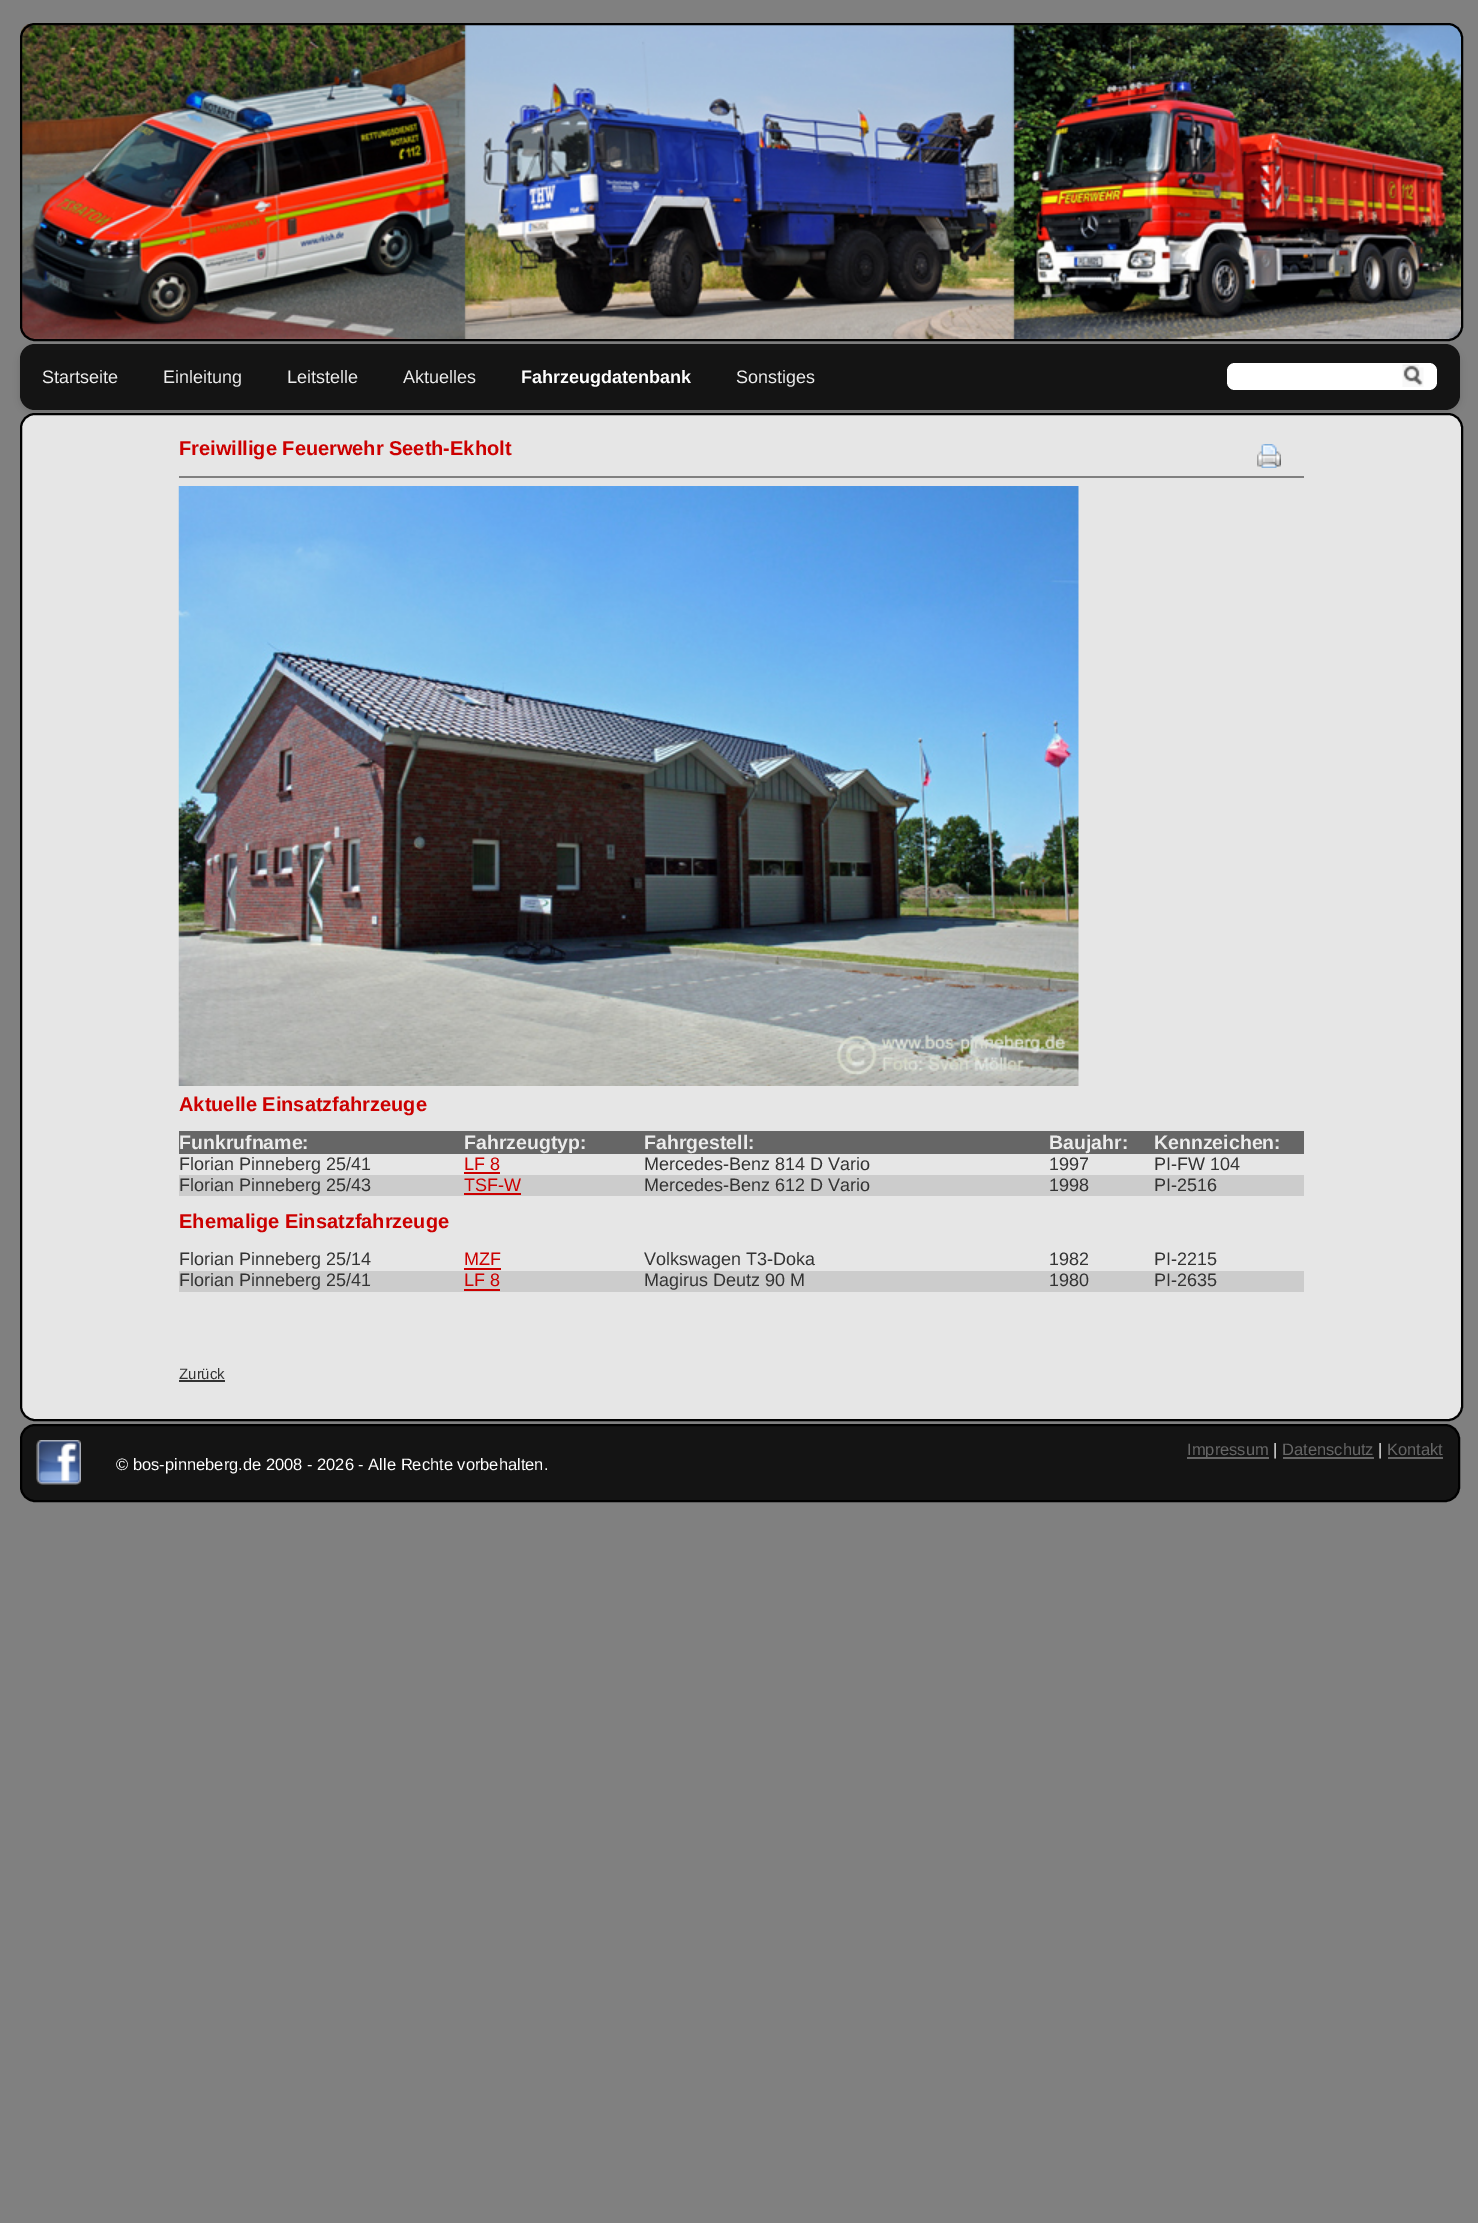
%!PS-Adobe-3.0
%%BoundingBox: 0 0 1478 2223
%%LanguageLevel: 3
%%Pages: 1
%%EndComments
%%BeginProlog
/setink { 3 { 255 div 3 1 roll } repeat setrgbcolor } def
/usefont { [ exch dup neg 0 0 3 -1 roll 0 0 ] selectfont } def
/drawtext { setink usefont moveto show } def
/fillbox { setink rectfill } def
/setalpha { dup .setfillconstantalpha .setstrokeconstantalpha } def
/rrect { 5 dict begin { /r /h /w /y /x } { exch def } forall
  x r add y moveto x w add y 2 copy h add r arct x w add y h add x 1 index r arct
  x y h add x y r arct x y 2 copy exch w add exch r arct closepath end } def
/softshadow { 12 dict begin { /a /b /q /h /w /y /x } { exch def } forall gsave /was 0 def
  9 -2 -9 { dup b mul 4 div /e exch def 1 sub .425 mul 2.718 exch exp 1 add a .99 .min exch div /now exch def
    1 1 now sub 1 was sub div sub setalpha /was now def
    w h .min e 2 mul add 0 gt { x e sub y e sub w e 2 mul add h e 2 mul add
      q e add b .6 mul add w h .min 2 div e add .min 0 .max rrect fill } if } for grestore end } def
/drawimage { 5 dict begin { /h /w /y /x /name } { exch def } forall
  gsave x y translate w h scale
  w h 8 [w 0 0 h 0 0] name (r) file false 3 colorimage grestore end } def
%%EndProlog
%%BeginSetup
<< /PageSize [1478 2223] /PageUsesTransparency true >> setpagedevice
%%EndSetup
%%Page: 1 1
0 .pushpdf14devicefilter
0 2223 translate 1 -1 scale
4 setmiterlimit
0 0 1478 2223 128 128 128 fillbox
(assets/img1.rgb) 21 24 1440 315 drawimage
0 0 0 setink
2 setlinewidth
21 24 1441 316 14 rrect stroke
68 68 68 setink
20 347 1440 66 15 4.5 0.3 softshadow
20 20 20 setink
20 344 1440 66 15 rrect fill
(Startseite) 42 383 /LiberationSans-Regular 18 236 236 236 drawtext
(Einleitung) 163 383 /LiberationSans-Regular 18 236 236 236 drawtext
(Leitstelle) 287 383 /LiberationSans-Regular 18 236 236 236 drawtext
(Aktuelles) 403 383 /LiberationSans-Regular 18 236 236 236 drawtext
(Fahrzeugdatenbank) 521 383 /LiberationSans-Bold 18 255 255 255 drawtext
(Sonstiges) 736 383 /LiberationSans-Regular 18 236 236 236 drawtext
255 255 255 setink
1227 363 210 27 8 rrect fill
(assets/img2.rgb) 1402 364 22 23 drawimage
230 230 230 setink
21 414 1441 1006 14 rrect gsave fill grestore
0 0 0 setink
stroke
(Freiwillige Feuerwehr Seeth-Ekholt) 179 455 /LiberationSans-Bold 20 204 0 0 drawtext
179 476 1125 2 128 128 128 fillbox
(assets/img3.rgb) 178 486 901 600 drawimage
(assets/img4.rgb) 1257 444 24 24 drawimage
(Aktuelle Einsatzfahrzeuge) 179 1111 /LiberationSans-Bold 20 204 0 0 drawtext
179 1131 1125 23 102 102 102 fillbox
(Funkrufname:) 179 1149 /LiberationSans-Bold 19.5 236 236 236 drawtext
(Fahrzeugtyp:) 464 1149 /LiberationSans-Bold 19.5 236 236 236 drawtext
(Fahrgestell:) 644 1149 /LiberationSans-Bold 19.5 236 236 236 drawtext
(Baujahr:) 1049 1149 /LiberationSans-Bold 19.5 236 236 236 drawtext
(Kennzeichen:) 1154 1149 /LiberationSans-Bold 19.5 236 236 236 drawtext
(Florian Pinneberg 25/41) 179 1170 /LiberationSans-Regular 18 51 51 51 drawtext
(LF 8) 464 1170 /LiberationSans-Regular 18 204 0 0 drawtext
464 1172 36 2 204 0 0 fillbox
(Mercedes-Benz 814 D Vario) 644 1170 /LiberationSans-Regular 18 51 51 51 drawtext
(1997) 1049 1170 /LiberationSans-Regular 18 51 51 51 drawtext
(PI-FW 104) 1154 1170 /LiberationSans-Regular 18 51 51 51 drawtext
179 1175 1125 21 204 204 204 fillbox
(Florian Pinneberg 25/43) 179 1191 /LiberationSans-Regular 18 51 51 51 drawtext
(TSF-W) 464 1191 /LiberationSans-Regular 18 204 0 0 drawtext
464 1193 57 2 204 0 0 fillbox
(Mercedes-Benz 612 D Vario) 644 1191 /LiberationSans-Regular 18 51 51 51 drawtext
(1998) 1049 1191 /LiberationSans-Regular 18 51 51 51 drawtext
(PI-2516) 1154 1191 /LiberationSans-Regular 18 51 51 51 drawtext
(Ehemalige Einsatzfahrzeuge) 179 1228 /LiberationSans-Bold 20 204 0 0 drawtext
(Florian Pinneberg 25/14) 179 1265 /LiberationSans-Regular 18 51 51 51 drawtext
(MZF) 464 1265 /LiberationSans-Regular 18 204 0 0 drawtext
464 1268 37 2 204 0 0 fillbox
(Volkswagen T3-Doka) 644 1265 /LiberationSans-Regular 18 51 51 51 drawtext
(1982) 1049 1265 /LiberationSans-Regular 18 51 51 51 drawtext
(PI-2215) 1154 1265 /LiberationSans-Regular 18 51 51 51 drawtext
179 1271 1125 21 204 204 204 fillbox
(Florian Pinneberg 25/41) 179 1286 /LiberationSans-Regular 18 51 51 51 drawtext
(LF 8) 464 1286 /LiberationSans-Regular 18 204 0 0 drawtext
464 1289 36 2 204 0 0 fillbox
(Magirus Deutz 90 M) 644 1286 /LiberationSans-Regular 18 51 51 51 drawtext
(1980) 1049 1286 /LiberationSans-Regular 18 51 51 51 drawtext
(PI-2635) 1154 1286 /LiberationSans-Regular 18 51 51 51 drawtext
(Zurück) 179 1379 /LiberationSans-Regular 15 51 51 51 drawtext
179 1380 46 2 51 51 51 fillbox
20 20 20 setink
21 1425 1438 76 14 rrect gsave fill grestore
0 0 0 setink
stroke
(assets/img5.rgb) 36 1440 45 45 drawimage
1187 1457 82 2 102 102 102 fillbox
(Impressum) 1187 1455 /LiberationSans-Regular 16.5 102 102 102 drawtext
(|) 1273 1455 /LiberationSans-Regular 16.5 255 255 255 drawtext
(Datenschutz) 1282 1455 /LiberationSans-Regular 16.5 102 102 102 drawtext
1283 1457 91 2 102 102 102 fillbox
(|) 1378 1455 /LiberationSans-Regular 16.5 255 255 255 drawtext
(Kontakt) 1387 1455 /LiberationSans-Regular 16.5 102 102 102 drawtext
1388 1457 55 2 102 102 102 fillbox
(© bos-pinneberg.de 2008 - 2026 - Alle Rechte vorbehalten.) 116 1470 /LiberationSans-Regular 16.5 255 255 255 drawtext
.poppdf14devicefilter showpage
%%EOF
